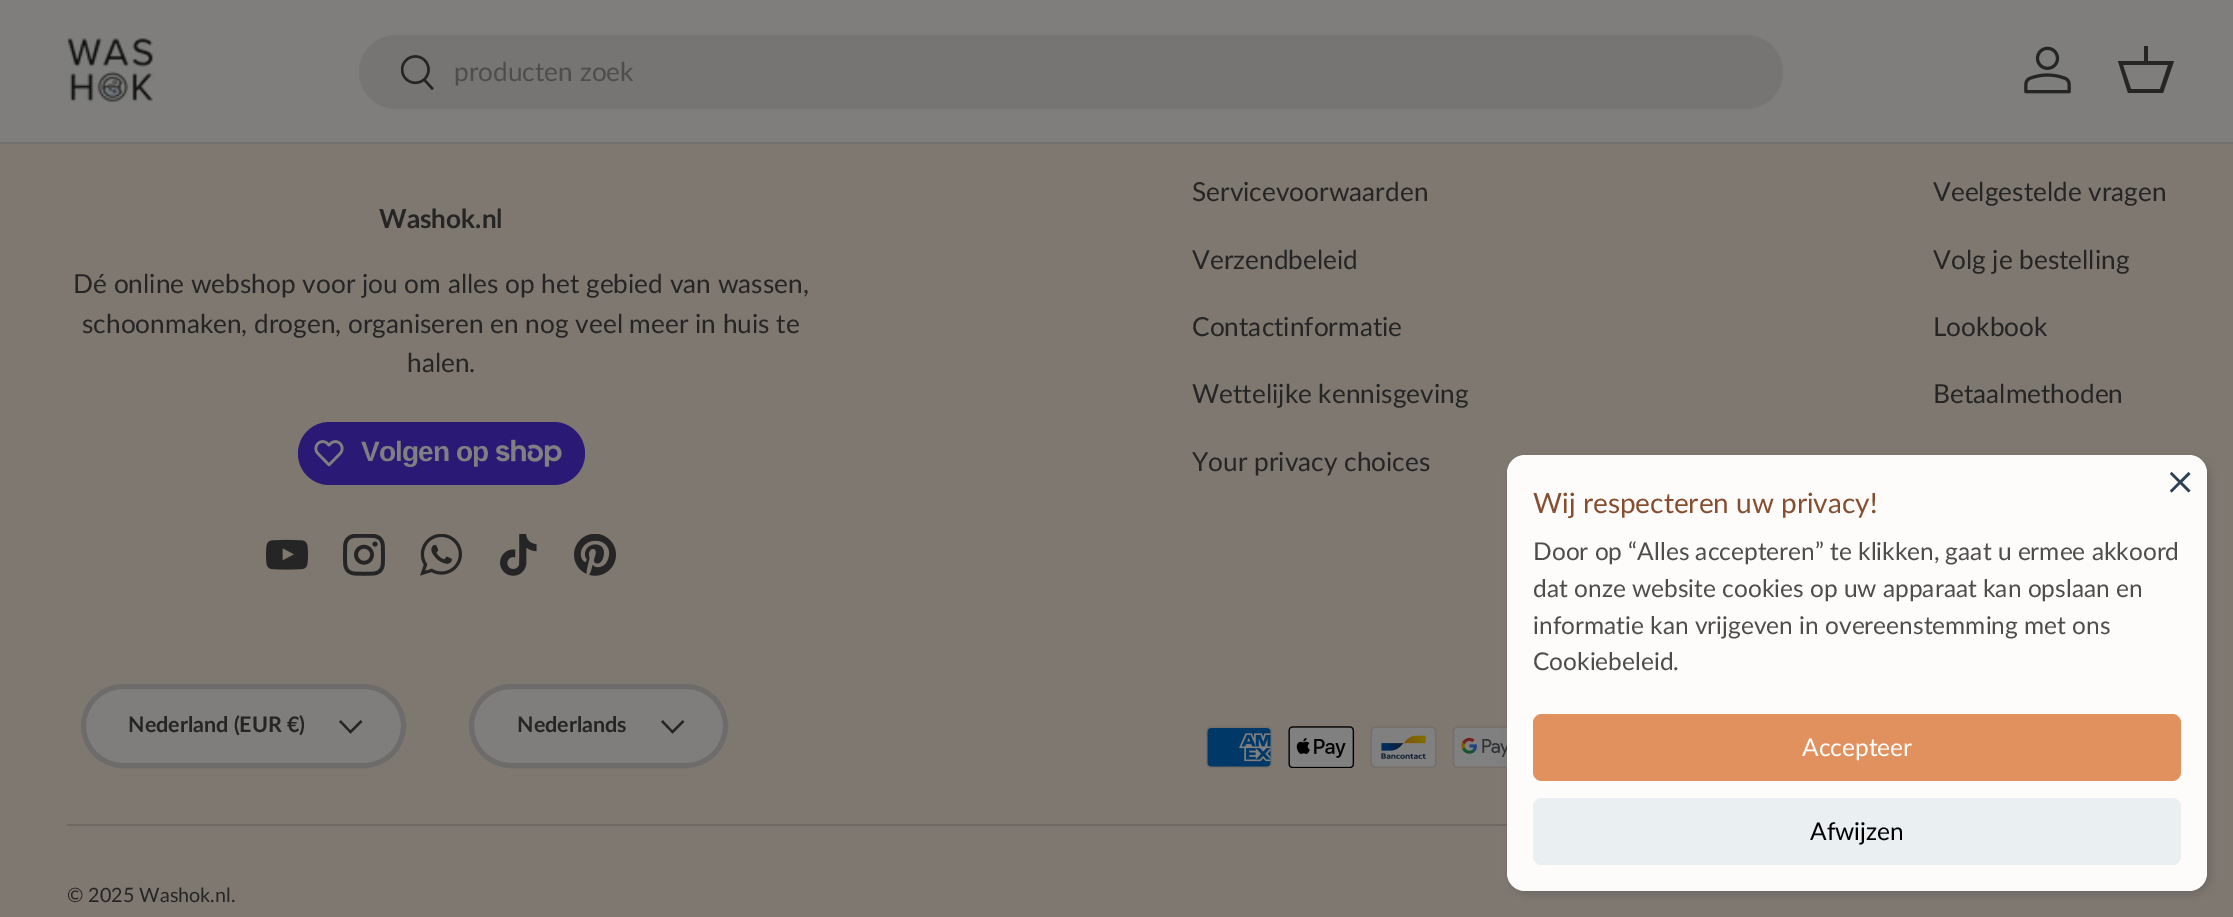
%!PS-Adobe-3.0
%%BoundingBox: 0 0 2233 917
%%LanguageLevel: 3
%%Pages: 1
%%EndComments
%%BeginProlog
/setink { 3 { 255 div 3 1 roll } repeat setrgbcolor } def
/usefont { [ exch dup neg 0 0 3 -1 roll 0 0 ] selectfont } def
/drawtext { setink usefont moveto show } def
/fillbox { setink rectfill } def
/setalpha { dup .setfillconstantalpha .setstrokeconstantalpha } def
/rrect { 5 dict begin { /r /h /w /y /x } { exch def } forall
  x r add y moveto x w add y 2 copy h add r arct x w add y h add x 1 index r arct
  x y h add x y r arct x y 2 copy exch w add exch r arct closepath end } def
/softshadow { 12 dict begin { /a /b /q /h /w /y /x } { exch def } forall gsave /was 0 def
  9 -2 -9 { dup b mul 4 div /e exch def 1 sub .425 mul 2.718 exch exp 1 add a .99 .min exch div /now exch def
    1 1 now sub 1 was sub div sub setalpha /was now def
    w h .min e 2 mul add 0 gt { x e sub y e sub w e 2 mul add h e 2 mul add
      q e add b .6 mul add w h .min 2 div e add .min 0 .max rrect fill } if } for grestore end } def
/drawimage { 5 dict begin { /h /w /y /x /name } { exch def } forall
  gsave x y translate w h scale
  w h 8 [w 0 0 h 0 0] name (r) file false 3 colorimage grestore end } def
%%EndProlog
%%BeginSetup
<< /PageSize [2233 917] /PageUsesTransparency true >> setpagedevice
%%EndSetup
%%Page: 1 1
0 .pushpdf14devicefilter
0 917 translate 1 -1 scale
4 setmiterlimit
0 0 2233 917 127 120 113 fillbox
0 0 2233 142 127 126 125 fillbox
0 142 2233 2 113 113 112 fillbox
(assets/img1.rgb) 67 38 86 64 drawimage
118 117 116 setink
359 35 1424 74 37 rrect fill
(assets/img2.rgb) 401 55 33 35 drawimage
(producten zoek) 454 81 /Lato-Regular 26.25 78 77 77 drawtext
(assets/img3.rgb) 2024 46 47 48 drawimage
37 37 37 setink
2144 61 moveto 2144 46 lineto 2148 46 lineto 2148 61 lineto 2174 61 lineto 2163 93 lineto 2128 93 lineto 2118 61 lineto closepath 2123 65 moveto 2131 89 lineto 2160 89 lineto 2168 65 lineto closepath fill
(Washok.nl) 379 228 /Lato-Bold 26.25 37 37 37 drawtext
(Dé online webshop voor jou om alles op het gebied van wassen,) 73 293 /Lato-Regular 26.25 37 37 37 drawtext
(schoonmaken, drogen, organiseren en nog veel meer in huis te) 82 333 /Lato-Regular 26.25 37 37 37 drawtext
(halen.) 407 372 /Lato-Regular 26.25 37 37 37 drawtext
42 26 118 setink
298 422 287 63 31.5 rrect fill
(assets/img4.rgb) 314 440 30 27 drawimage
/LiberationSans-Bold 28 usefont
128 128 128 setink
361 461 moveto -0.9 0 (Volgen op) ashow
(assets/img5.rgb) 496 439 66 28 drawimage
(assets/img6.rgb) 266 539 42 31 drawimage
(assets/img7.rgb) 343 534 42 42 drawimage
(assets/img8.rgb) 420 534 42 42 drawimage
(assets/img9.rgb) 500 534 37 42 drawimage
(assets/img10.rgb) 574 534 42 42 drawimage
(Servicevoorwaarden) 1192 201 /Lato-Regular 26.25 37 37 37 drawtext
(Verzendbeleid) 1192 269 /Lato-Regular 26.25 37 37 37 drawtext
(Contactinformatie) 1192 336 /Lato-Regular 26.25 37 37 37 drawtext
(Wettelijke kennisgeving) 1192 403 /Lato-Regular 26.25 37 37 37 drawtext
(Your privacy choices) 1192 471 /Lato-Regular 26.25 37 37 37 drawtext
(Veelgestelde vragen) 1933 201 /Lato-Regular 26.25 37 37 37 drawtext
(Volg je bestelling) 1933 269 /Lato-Regular 26.25 37 37 37 drawtext
(Lookbook) 1933 336 /Lato-Regular 26.25 37 37 37 drawtext
(Betaalmethoden) 1933 403 /Lato-Regular 26.25 37 37 37 drawtext
127 126 125 setink
81 684 325 84 42 rrect fill
0.2 setalpha
37 37 37 setink
5 setlinewidth
83.5 686.5 320 79 39.5 rrect stroke
1 setalpha
(Nederland \(EUR €\)) 128 732 /Lato-Bold 21.5 37 37 37 drawtext
2.2 setlinewidth
361.5 721 moveto 350.5 732 lineto 340 721 lineto stroke
127 126 125 setink
469 684 259 84 42 rrect fill
0.2 setalpha
37 37 37 setink
5 setlinewidth
471.5 686.5 254 79 39.5 rrect stroke
1 setalpha
(Nederlands) 517 732 /Lato-Bold 21.5 37 37 37 drawtext
2.2 setlinewidth
683.5 721 moveto 672.5 732 lineto 662 721 lineto stroke
(assets/img11.rgb) 1206 726 66 42 drawimage
(assets/img12.rgb) 1288 726 67 42 drawimage
(assets/img13.rgb) 1370 726 67 42 drawimage
(assets/img14.rgb) 1452 726 55 42 drawimage
67 824 1440 2 109 104 98 fillbox
(© 2025 Washok.nl.) 67 902 /Lato-Regular 19.75 37 37 37 drawtext
0 0 0 setink
1510 459 700 435 18 5 0.15 softshadow
253 252 250 setink
1507 455 700 436 18 rrect fill
45 65 86 setink
2188.5 472 moveto 2190.5 474 lineto 2171.5 492.5 lineto 2170 490.5 lineto closepath fill
2170 474 moveto 2171.5 472 lineto 2190.5 490.5 lineto 2188.5 492.5 lineto closepath fill
(Wij respecteren uw privacy!) 1533 513 /Lato-Regular 28 134 77 46 drawtext
(Door op “Alles accepteren” te klikken, gaat u ermee akkoord) 1533 560 /Lato-Regular 24.5 78 77 77 drawtext
(dat onze website cookies op uw apparaat kan opslaan en) 1533 597 /Lato-Regular 24.5 78 77 77 drawtext
(informatie kan vrijgeven in overeenstemming met ons) 1533 634 /Lato-Regular 24.5 78 77 77 drawtext
(Cookiebeleid.) 1533 670 /Lato-Regular 24.5 78 77 77 drawtext
224 145 93 setink
1533 714 648 67 9 rrect fill
(Accepteer) 1802 756 /Lato-Regular 24.5 255 255 255 drawtext
234 239 242 setink
1533 798 648 67 9 rrect fill
(Afwijzen) 1810 840 /Lato-Regular 24.5 0 0 0 drawtext
.poppdf14devicefilter showpage
%%EOF
